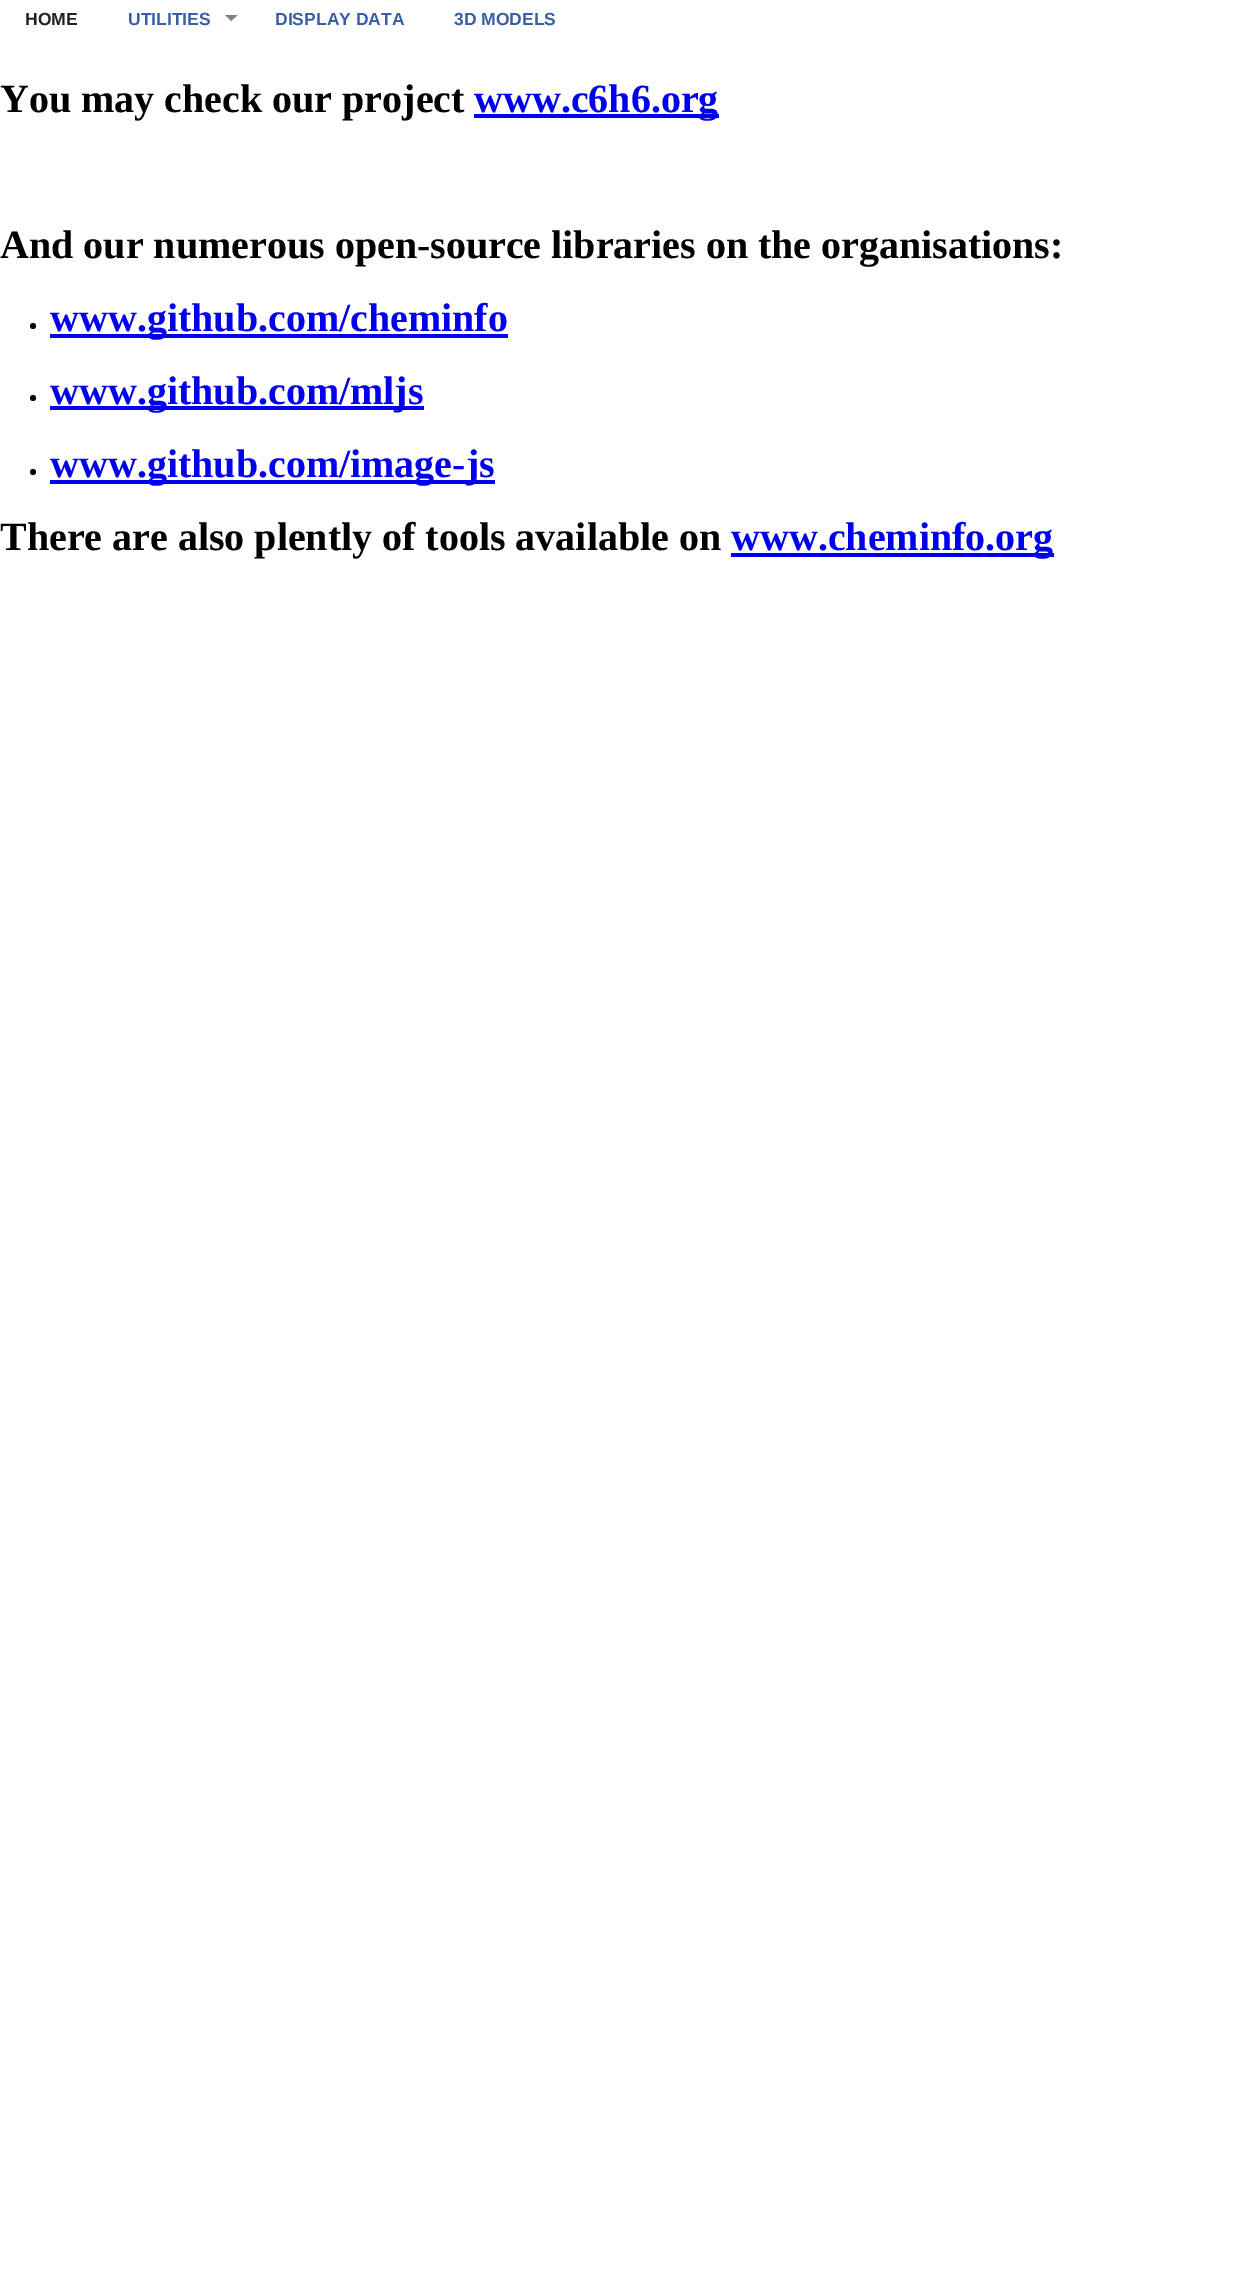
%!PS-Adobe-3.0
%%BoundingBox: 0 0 1249 2288
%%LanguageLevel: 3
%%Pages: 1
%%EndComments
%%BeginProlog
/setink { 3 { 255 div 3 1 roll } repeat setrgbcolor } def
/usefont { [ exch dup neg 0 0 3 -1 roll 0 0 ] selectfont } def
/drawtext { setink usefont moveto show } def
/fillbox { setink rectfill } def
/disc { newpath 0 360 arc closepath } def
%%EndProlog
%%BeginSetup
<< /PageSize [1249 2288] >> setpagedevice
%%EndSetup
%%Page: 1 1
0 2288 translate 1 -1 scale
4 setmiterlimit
0 0 1249 2288 255 255 255 fillbox
(HOME) 25 25 /LiberationSans-Bold 17.5 34 34 34 drawtext
(UTILITIES) 128 25 /LiberationSans-Bold 17.5 56 94 163 drawtext
122 129 137 setink
225 15 moveto 237.5 15 lineto 231 21 lineto closepath fill
(DISPLAY DATA) 275 25 /LiberationSans-Bold 17.5 56 94 163 drawtext
(3D MODELS) 454 25 /LiberationSans-Bold 17.5 56 94 163 drawtext
(You may check our project) 0 112 /LiberationSerif-Bold 40 0 0 0 drawtext
474 114 245 4 0 0 238 fillbox
(www.c6h6.org) 474 112 /LiberationSerif-Bold 40 0 0 238 drawtext
(And our numerous open-source libraries on the organisations:) 0 258 /LiberationSerif-Bold 40 0 0 0 drawtext
33 326 3 disc fill
50 334 458 4 0 0 238 fillbox
(www.github.com/cheminfo) 50 331 /LiberationSerif-Bold 40 0 0 238 drawtext
0 0 0 setink
33 398 3 disc fill
50 406 374 4 0 0 238 fillbox
(www.github.com/mljs) 50 404 /LiberationSerif-Bold 40 0 0 238 drawtext
0 0 0 setink
33 472 3 disc fill
50 480 445 4 0 0 238 fillbox
(www.github.com/image-js) 50 477 /LiberationSerif-Bold 40 0 0 238 drawtext
(There are also plently of tools available on) 0 550 /LiberationSerif-Bold 40 0 0 0 drawtext
731 553 323 4 0 0 238 fillbox
(www.cheminfo.org) 731 550 /LiberationSerif-Bold 40 0 0 238 drawtext
showpage
%%EOF
